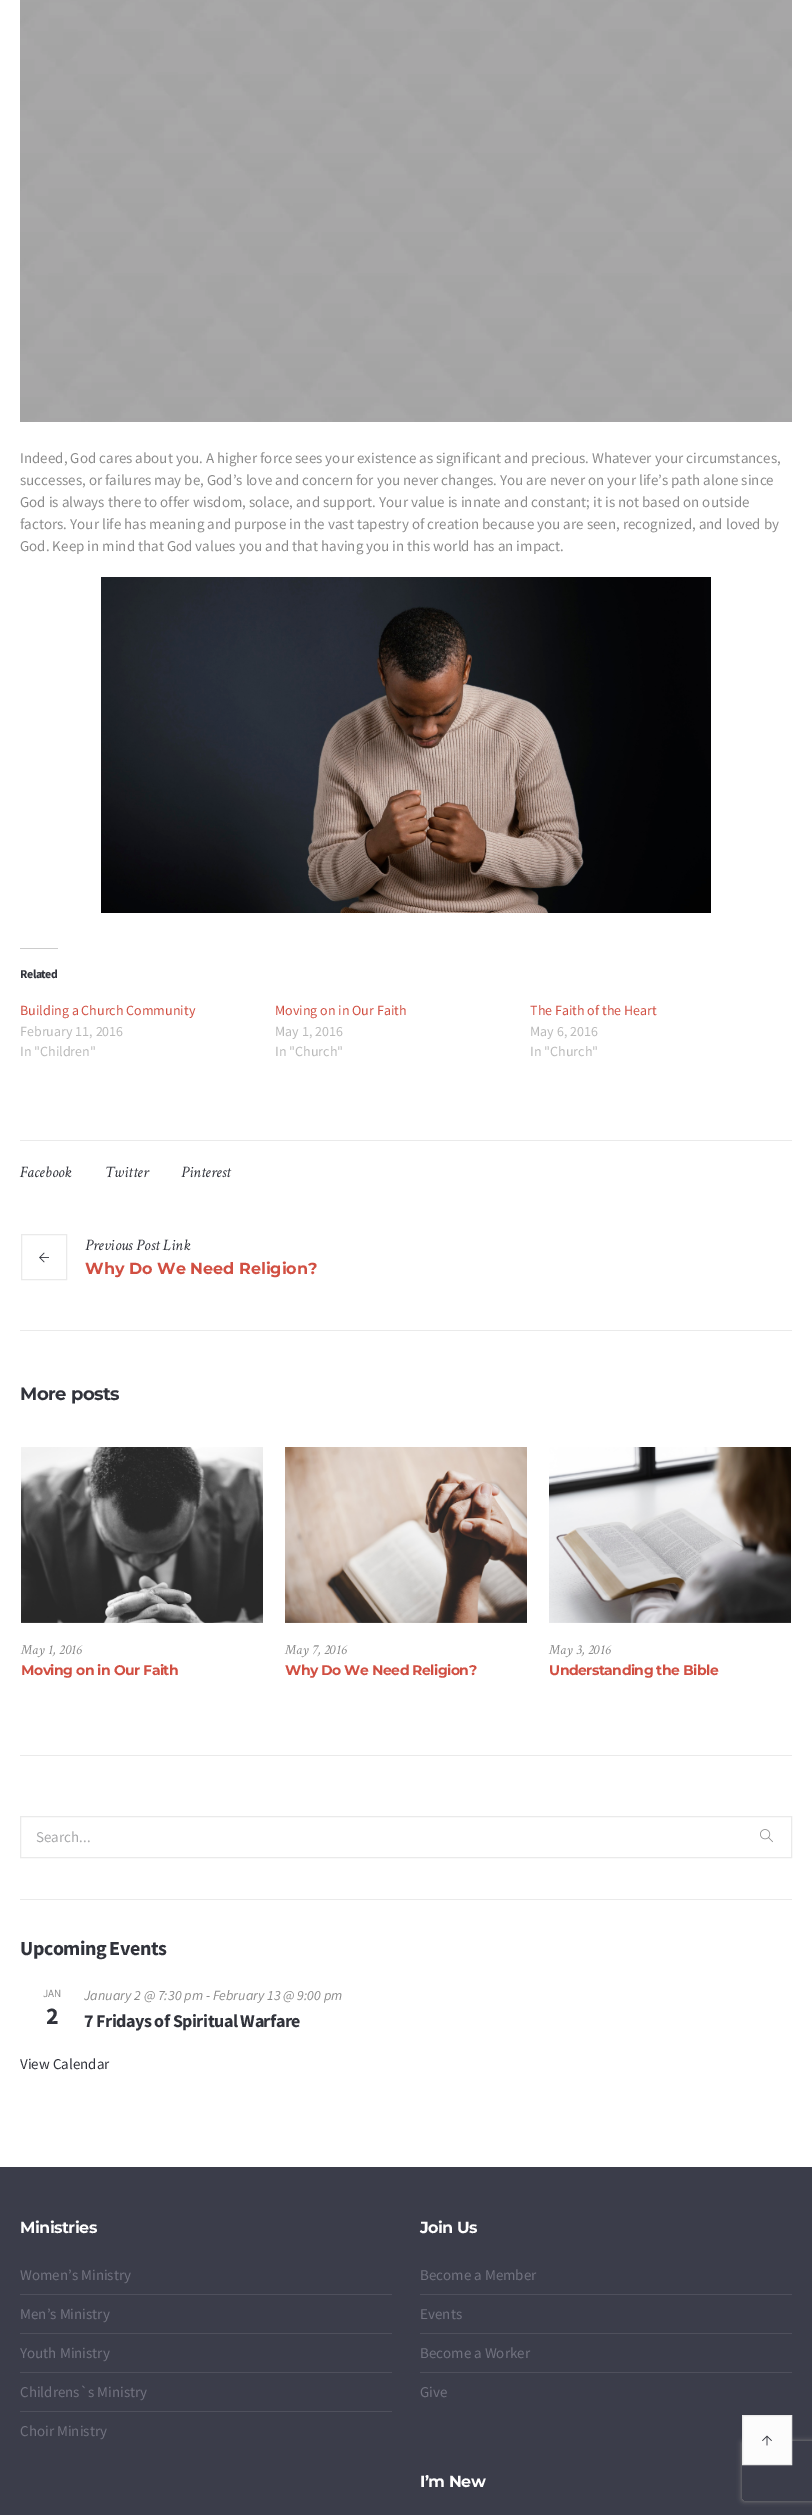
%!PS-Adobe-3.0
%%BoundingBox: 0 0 812 2515
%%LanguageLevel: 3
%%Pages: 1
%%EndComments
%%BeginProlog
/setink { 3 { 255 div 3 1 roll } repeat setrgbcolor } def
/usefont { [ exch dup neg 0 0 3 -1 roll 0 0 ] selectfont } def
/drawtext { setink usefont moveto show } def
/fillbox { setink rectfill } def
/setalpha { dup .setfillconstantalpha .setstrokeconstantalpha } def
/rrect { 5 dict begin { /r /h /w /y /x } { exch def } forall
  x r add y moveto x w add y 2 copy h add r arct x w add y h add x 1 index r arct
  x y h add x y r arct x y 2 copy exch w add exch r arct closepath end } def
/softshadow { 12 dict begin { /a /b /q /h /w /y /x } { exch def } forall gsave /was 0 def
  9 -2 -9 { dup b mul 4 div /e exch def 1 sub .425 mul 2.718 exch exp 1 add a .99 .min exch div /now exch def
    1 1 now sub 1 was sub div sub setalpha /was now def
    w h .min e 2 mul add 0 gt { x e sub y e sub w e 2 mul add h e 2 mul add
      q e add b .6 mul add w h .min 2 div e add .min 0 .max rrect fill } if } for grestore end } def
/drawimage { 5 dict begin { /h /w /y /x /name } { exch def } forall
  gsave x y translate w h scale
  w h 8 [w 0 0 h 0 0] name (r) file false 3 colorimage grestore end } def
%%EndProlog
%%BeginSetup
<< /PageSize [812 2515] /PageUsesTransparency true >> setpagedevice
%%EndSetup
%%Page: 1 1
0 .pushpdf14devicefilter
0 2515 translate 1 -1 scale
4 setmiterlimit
0 0 812 2515 255 255 255 fillbox
(assets/img1.rgb) 20 0 772 422 drawimage
(Indeed, God cares about you. A higher force sees your existence as significant and precious. Whatever your circumstances,) 20 463 /SourceSansPro-Regular 15 139 139 139 drawtext
(successes, or failures may be, God’s love and concern for you never changes. You are never on your life’s path alone since) 20 485 /SourceSansPro-Regular 15 139 139 139 drawtext
(God is always there to offer wisdom, solace, and support. Your value is innate and constant; it is not based on outside) 20 507 /SourceSansPro-Regular 15 139 139 139 drawtext
(factors. Your life has meaning and purpose in the vast tapestry of creation because you are seen, recognized, and loved by) 20 529 /SourceSansPro-Regular 15 139 139 139 drawtext
(God. Keep in mind that God values you and that having you in this world has an impact.) 20 551 /SourceSansPro-Regular 15 139 139 139 drawtext
(assets/img2.rgb) 101 577 610 336 drawimage
20 948 38 1 204 204 204 fillbox
/SourceSansPro-Bold 12 usefont
49 51 59 setink
20 978 moveto -0.5 0 (Related) ashow
(Building a Church Community) 20 1015 /SourceSansPro-Regular 14 209 79 66 drawtext
(February 11, 2016) 20 1036 /SourceSansPro-Regular 14 185 185 185 drawtext
(In "Children") 20 1056 /SourceSansPro-Regular 14 185 185 185 drawtext
(Moving on in Our Faith) 275 1015 /SourceSansPro-Regular 14 209 79 66 drawtext
(May 1, 2016) 275 1036 /SourceSansPro-Regular 14 185 185 185 drawtext
(In "Church") 275 1056 /SourceSansPro-Regular 14 185 185 185 drawtext
(The Faith of the Heart) 530 1015 /SourceSansPro-Regular 14 209 79 66 drawtext
(May 6, 2016) 530 1036 /SourceSansPro-Regular 14 185 185 185 drawtext
(In "Church") 530 1056 /SourceSansPro-Regular 14 185 185 185 drawtext
20 1140 772 1 234 234 234 fillbox
(Facebook) 20 1177 /CrimsonText-Italic 16 49 51 59 drawtext
(Twitter) 105 1177 /CrimsonText-Italic 16 49 51 59 drawtext
(Pinterest) 181 1177 /CrimsonText-Italic 16 49 51 59 drawtext
234 234 234 setink
21.5 1234.5 45 45 rectstroke
(assets/img3.rgb) 39 1252 10 11 drawimage
(Previous Post Link) 85 1250 /CrimsonText-Italic 16 49 51 59 drawtext
(Why Do We Need Religion?) 85 1274 /Montserrat-Bold 16 209 79 66 drawtext
20 1330 772 1 234 234 234 fillbox
/Montserrat-Bold 18 usefont
49 51 59 setink
20 1400 moveto -0.5 0 (More posts) ashow
(assets/img4.rgb) 21 1447 242 176 drawimage
(May 1, 2016) 21 1654 /CrimsonText-Italic 14 139 139 139 drawtext
/Montserrat-Bold 14 usefont
209 79 66 setink
21 1675 moveto -0.5 0 (Moving on in Our Faith) ashow
(assets/img5.rgb) 285 1447 242 176 drawimage
(May 7, 2016) 285 1654 /CrimsonText-Italic 14 139 139 139 drawtext
/Montserrat-Bold 14 usefont
209 79 66 setink
285 1675 moveto -0.5 0 (Why Do We Need Religion?) ashow
(assets/img6.rgb) 549 1447 242 176 drawimage
(May 3, 2016) 549 1654 /CrimsonText-Italic 14 139 139 139 drawtext
/Montserrat-Bold 14 usefont
209 79 66 setink
549 1675 moveto -0.5 0 (Understanding the Bible) ashow
20 1755 772 1 234 234 234 fillbox
20 1899 772 1 234 234 234 fillbox
20.5 1816.5 771 41 rectstroke
(Search...) 36 1842 /SourceSansPro-Regular 15 168 169 171 drawtext
(assets/img7.rgb) 760 1829 13 14 drawimage
/SourceSansPro-Bold 20 usefont
49 51 59 setink
20 1955 moveto -0.5 0 (Upcoming Events) ashow
(JAN) 43 1997 /SourceSansPro-Regular 11 139 139 139 drawtext
(2) 46 2024 /SourceSansPro-Bold 24 49 51 59 drawtext
(January 2 @ 7:30 pm - February 13 @ 9:00 pm) 84 2000 /SourceSansPro-Italic 14 139 139 139 drawtext
/SourceSansPro-Bold 18 usefont
49 51 59 setink
84 2027 moveto -0.5 0 (7 Fridays of Spiritual Warfare) ashow
(View Calendar) 20 2069 /SourceSansPro-Regular 15 49 51 59 drawtext
0 2167 812 348 59 61 74 fillbox
/Montserrat-Bold 16 usefont
255 255 255 setink
20 2233 moveto -0.5 0 (Ministries) ashow
(Women’s Ministry) 20 2280 /SourceSansPro-Regular 15 113 114 127 drawtext
20 2294 372 1 79 80 92 fillbox
(Men’s Ministry) 20 2319 /SourceSansPro-Regular 15 113 114 127 drawtext
20 2333 372 1 79 80 92 fillbox
(Youth Ministry) 20 2358 /SourceSansPro-Regular 15 113 114 127 drawtext
20 2372 372 1 79 80 92 fillbox
(Childrens`s Ministry) 20 2397 /SourceSansPro-Regular 15 113 114 127 drawtext
20 2411 372 1 79 80 92 fillbox
(Choir Ministry) 20 2436 /SourceSansPro-Regular 15 113 114 127 drawtext
/Montserrat-Bold 16 usefont
255 255 255 setink
420 2233 moveto -0.5 0 (Join Us) ashow
(Become a Member) 420 2280 /SourceSansPro-Regular 15 113 114 127 drawtext
420 2294 372 1 79 80 92 fillbox
(Events) 420 2319 /SourceSansPro-Regular 15 113 114 127 drawtext
420 2333 372 1 79 80 92 fillbox
(Become a Worker) 420 2358 /SourceSansPro-Regular 15 113 114 127 drawtext
420 2372 372 1 79 80 92 fillbox
(Give) 420 2397 /SourceSansPro-Regular 15 113 114 127 drawtext
/Montserrat-Bold 16 usefont
255 255 255 setink
420 2487 moveto -0.5 0 (I’m New) ashow
gsave
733 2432 moveto 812 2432 lineto 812 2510 lineto 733 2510 lineto closepath 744 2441 moveto 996 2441 lineto 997 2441 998 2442 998 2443 curveto 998 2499 lineto 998 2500 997 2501 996 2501 curveto 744 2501 lineto 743 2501 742 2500 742 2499 curveto 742 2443 lineto 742 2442 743 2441 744 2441 curveto closepath eoclip newpath
128 128 128 setink
742 2441 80 60 2 2.5 1 softshadow
grestore
252 252 252 setink
742.5 2415.5 moveto 791.5 2415.5 lineto 791.5 2464.5 lineto 742.5 2464.5 lineto closepath gsave fill grestore
234 234 234 setink
stroke
(assets/img8.rgb) 762 2435 10 11 drawimage
.poppdf14devicefilter showpage
%%EOF
